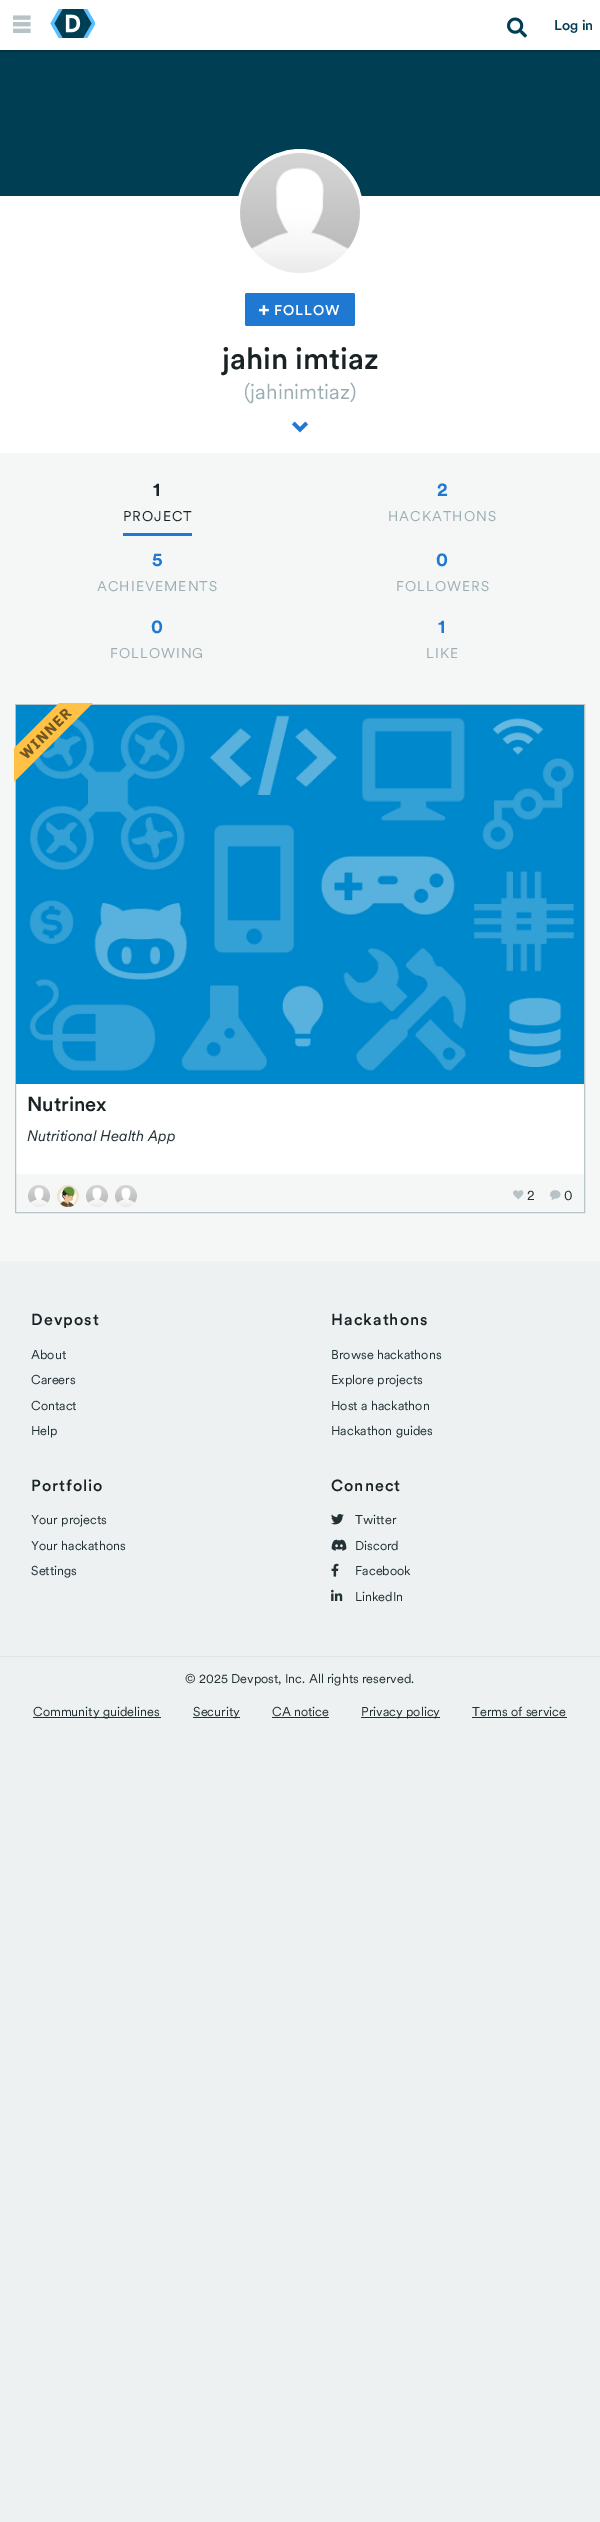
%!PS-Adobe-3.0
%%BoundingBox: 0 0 600 2522
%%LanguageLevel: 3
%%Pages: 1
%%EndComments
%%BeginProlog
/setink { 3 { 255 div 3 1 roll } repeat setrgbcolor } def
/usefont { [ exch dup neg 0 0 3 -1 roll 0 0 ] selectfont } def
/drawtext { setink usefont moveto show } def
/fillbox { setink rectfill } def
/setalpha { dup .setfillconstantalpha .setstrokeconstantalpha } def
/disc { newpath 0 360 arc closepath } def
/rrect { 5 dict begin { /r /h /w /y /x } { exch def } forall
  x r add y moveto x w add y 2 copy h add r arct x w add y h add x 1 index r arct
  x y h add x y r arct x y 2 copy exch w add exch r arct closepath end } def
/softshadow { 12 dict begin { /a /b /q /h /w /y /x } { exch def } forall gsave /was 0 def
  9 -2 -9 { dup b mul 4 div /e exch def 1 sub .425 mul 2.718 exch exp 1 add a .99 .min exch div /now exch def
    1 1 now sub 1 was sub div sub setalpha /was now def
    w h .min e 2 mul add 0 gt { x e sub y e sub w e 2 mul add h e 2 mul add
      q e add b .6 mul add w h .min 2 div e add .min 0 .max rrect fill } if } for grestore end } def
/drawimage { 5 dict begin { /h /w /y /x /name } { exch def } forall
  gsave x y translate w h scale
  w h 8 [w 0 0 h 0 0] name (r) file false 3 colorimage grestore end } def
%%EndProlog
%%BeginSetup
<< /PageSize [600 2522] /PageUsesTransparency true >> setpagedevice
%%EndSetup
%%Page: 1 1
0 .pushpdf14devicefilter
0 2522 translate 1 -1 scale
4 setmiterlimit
0 0 600 2522 237 241 242 fillbox
0 0 600 453 255 255 255 fillbox
0 50 600 146 0 62 84 fillbox
gsave
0 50 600 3 rectclip
0 0 0 setink
0 1 600 50 0 1.5 0.3 softshadow
grestore
(assets/img1.rgb) 13 15 18 18 drawimage
(assets/img2.rgb) 50 9 45 29 drawimage
(assets/img3.rgb) 507 17 20 21 drawimage
(Log in) 554 30 /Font-Medium 14 0 62 84 drawtext
255 255 255 setink
4 setlinewidth
300 213 62 disc stroke
(assets/img4.rgb) 240 153 120 120 drawimage
31 120 209 setink
245 293 110 33 2 rrect fill
(assets/img5.rgb) 259 305 10 10 drawimage
255 255 255 setink
274 315 moveto 1 0 (FOLLOW) ashow
(jahin imtiaz) 222 369 /Font-Medium 30 25 35 37 drawtext
(\(jahinimtiaz\)) 244 399 /Font-Regular 21 156 174 178 drawtext
(assets/img6.rgb) 292 421 16 12 drawimage
0 453 600 808 245 247 247 fillbox
123 533 69 3 31 120 209 fillbox
/Font-Bold 19 usefont
25 35 37 setink
153 496 moveto 1 0 (1) ashow
/Font-Regular 14 usefont
123 521 moveto 1 0 (PROJECT) ashow
/Font-Bold 19 usefont
31 120 209 setink
437 496 moveto 1 0 (2) ashow
/Font-Regular 14 usefont
156 174 178 setink
388 521 moveto 1 0 (HACKATHONS) ashow
/Font-Bold 19 usefont
31 120 209 setink
152 566 moveto 1 0 (5) ashow
/Font-Regular 14 usefont
156 174 178 setink
97 591 moveto 1 0 (ACHIEVEMENTS) ashow
/Font-Bold 19 usefont
31 120 209 setink
436 566 moveto 1 0 (0) ashow
/Font-Regular 14 usefont
156 174 178 setink
396 591 moveto 1 0 (FOLLOWERS) ashow
/Font-Bold 19 usefont
31 120 209 setink
151 633 moveto 1 0 (0) ashow
/Font-Regular 14 usefont
156 174 178 setink
110 658 moveto 1 0 (FOLLOWING) ashow
/Font-Bold 19 usefont
31 120 209 setink
438 633 moveto 1 0 (1) ashow
/Font-Regular 14 usefont
156 174 178 setink
426 658 moveto 1 0 (LIKE) ashow
16 1084 568 90 255 255 255 fillbox
183 195 199 setink
1 setlinewidth
15.5 704.5 569 508 rectstroke
(assets/img8.rgb) 16 705 568 379 drawimage
(assets/img7.rgb) 14 703 79 79 drawimage
(Nutrinex) 27 1111 /Font-Medium 20 25 35 37 drawtext
(Nutritional Health App) 27 1141 /Font-Italic 15 35 49 54 drawtext
(assets/img9.rgb) 28 1185 22 22 drawimage
(assets/img10.rgb) 57 1185 22 22 drawimage
(assets/img11.rgb) 86 1185 22 22 drawimage
(assets/img12.rgb) 115 1185 22 22 drawimage
(assets/img13.rgb) 513 1190 11 10 drawimage
(2) 527 1200 /Font-Regular 14 35 49 54 drawtext
(assets/img14.rgb) 550 1190 11 10 drawimage
(0) 564 1200 /Font-Regular 14 35 49 54 drawtext
/Font-Medium 16 usefont
25 35 37 setink
31 1325 moveto 1 0 (Devpost) ashow
(About) 31 1359 /Font-Regular 12.75 35 49 54 drawtext
(Careers) 31 1384 /Font-Regular 12.75 35 49 54 drawtext
(Contact) 31 1410 /Font-Regular 12.75 35 49 54 drawtext
(Help) 31 1435 /Font-Regular 12.75 35 49 54 drawtext
/Font-Medium 16 usefont
25 35 37 setink
331 1325 moveto 1 0 (Hackathons) ashow
(Browse hackathons) 331 1359 /Font-Regular 12.75 35 49 54 drawtext
(Explore projects) 331 1384 /Font-Regular 12.75 35 49 54 drawtext
(Host a hackathon) 331 1410 /Font-Regular 12.75 35 49 54 drawtext
(Hackathon guides) 331 1435 /Font-Regular 12.75 35 49 54 drawtext
/Font-Medium 16 usefont
25 35 37 setink
31 1491 moveto 1 0 (Portfolio) ashow
(Your projects) 31 1524 /Font-Regular 12.75 35 49 54 drawtext
(Your hackathons) 31 1550 /Font-Regular 12.75 35 49 54 drawtext
(Settings) 31 1575 /Font-Regular 12.75 35 49 54 drawtext
/Font-Medium 16 usefont
25 35 37 setink
331 1491 moveto 1 0 (Connect) ashow
(assets/img15.rgb) 331 1514 13 11 drawimage
(Twitter) 355 1524 /Font-Regular 12.75 35 49 54 drawtext
(assets/img16.rgb) 331 1539 16 12 drawimage
(Discord) 355 1550 /Font-Regular 12.75 35 49 54 drawtext
(assets/img17.rgb) 331 1563 8 14 drawimage
(Facebook) 355 1575 /Font-Regular 12.75 35 49 54 drawtext
(assets/img18.rgb) 331 1589 12 12 drawimage
(LinkedIn) 355 1601 /Font-Regular 12.75 35 49 54 drawtext
0 1656 600 1 220 230 233 fillbox
(© 2025 Devpost, Inc. All rights reserved.) 185 1683 /Font-Regular 12.75 35 49 54 drawtext
33 1717 128 1 35 49 54 fillbox
(Community guidelines) 33 1716 /Font-Regular 12.75 35 49 54 drawtext
193 1717 47 1 35 49 54 fillbox
(Security) 193 1716 /Font-Regular 12.75 35 49 54 drawtext
(CA notice) 272 1716 /Font-Regular 12.75 35 49 54 drawtext
272 1717 57 1 35 49 54 fillbox
361 1717 79 1 35 49 54 fillbox
(Privacy policy) 361 1716 /Font-Regular 12.75 35 49 54 drawtext
(Terms of service) 472 1716 /Font-Regular 12.75 35 49 54 drawtext
472 1717 95 1 35 49 54 fillbox
.poppdf14devicefilter showpage
%%EOF
